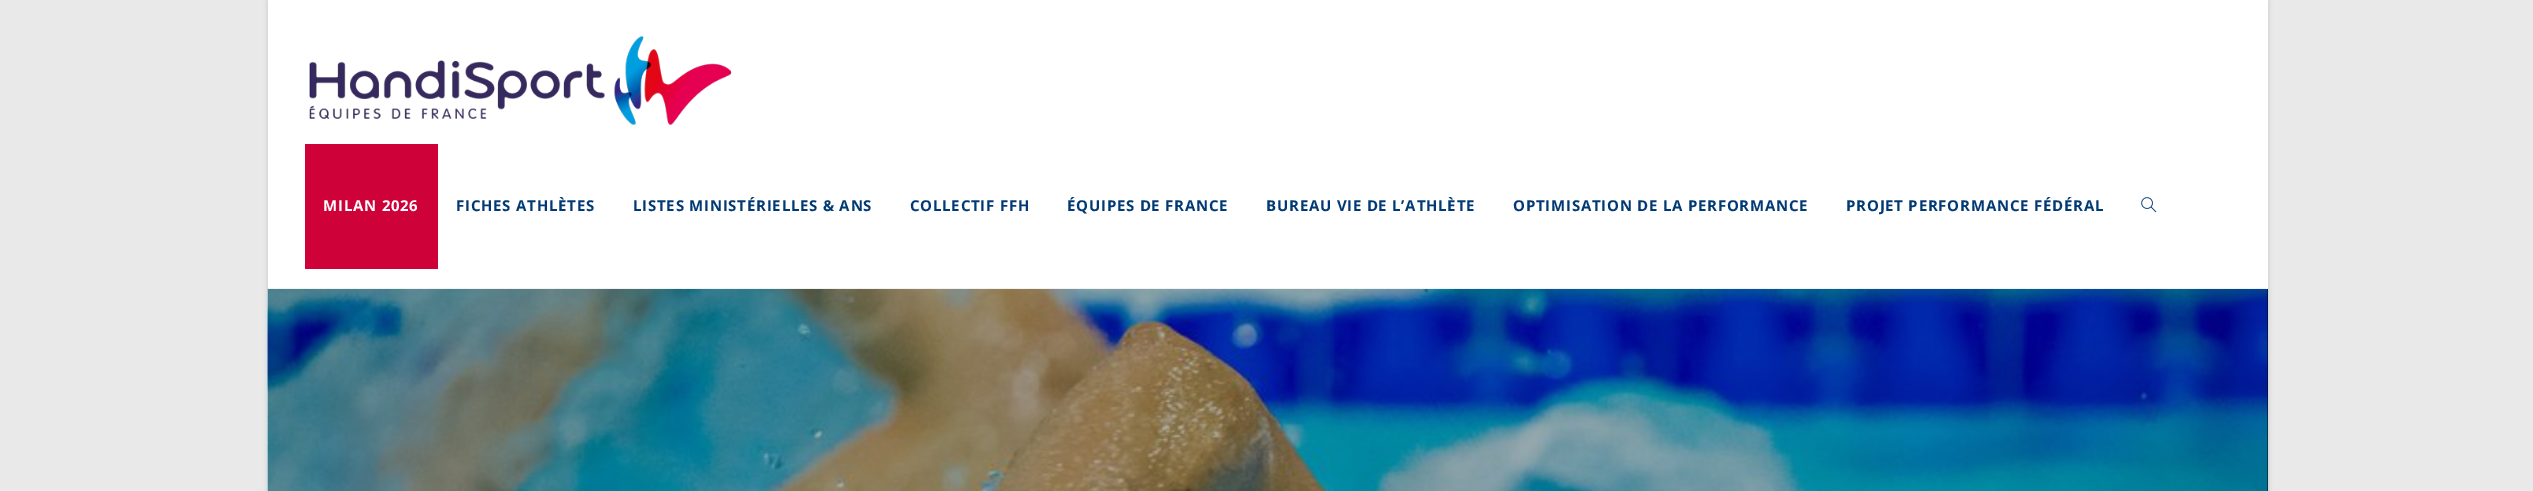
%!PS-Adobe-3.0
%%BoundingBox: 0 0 2533 491
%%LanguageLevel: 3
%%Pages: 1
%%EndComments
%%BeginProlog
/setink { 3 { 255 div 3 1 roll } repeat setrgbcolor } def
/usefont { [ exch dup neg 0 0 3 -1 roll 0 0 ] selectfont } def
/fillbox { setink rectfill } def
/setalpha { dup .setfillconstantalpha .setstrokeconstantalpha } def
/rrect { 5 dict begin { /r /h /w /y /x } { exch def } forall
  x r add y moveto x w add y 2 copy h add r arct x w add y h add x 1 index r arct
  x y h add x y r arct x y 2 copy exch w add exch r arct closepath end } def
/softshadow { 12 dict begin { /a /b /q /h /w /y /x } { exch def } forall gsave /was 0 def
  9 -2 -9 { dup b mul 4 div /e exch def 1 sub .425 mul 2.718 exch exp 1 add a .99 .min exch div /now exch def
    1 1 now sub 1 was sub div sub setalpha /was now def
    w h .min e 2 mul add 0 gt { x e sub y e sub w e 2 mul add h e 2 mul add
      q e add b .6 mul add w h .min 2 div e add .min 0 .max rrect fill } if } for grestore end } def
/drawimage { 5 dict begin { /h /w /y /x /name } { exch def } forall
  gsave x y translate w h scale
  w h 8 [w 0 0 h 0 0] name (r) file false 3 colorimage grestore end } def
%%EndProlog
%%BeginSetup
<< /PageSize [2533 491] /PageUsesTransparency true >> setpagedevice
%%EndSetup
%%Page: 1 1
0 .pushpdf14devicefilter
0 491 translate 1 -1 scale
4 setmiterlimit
0 0 2533 491 233 233 233 fillbox
0 0 0 setink
268 1 2000 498 0 2.5 0.15 softshadow
268 0 2000 288 255 255 255 fillbox
2267 289 1 202 0 0 0 fillbox
(assets/img3.rgb) 267 288 2001 203 drawimage
268 288 2000 1 241 241 241 fillbox
(assets/img1.rgb) 309 36 423 90 drawimage
305 144 133 125 206 2 56 fillbox
/OpenSans-Bold 15 usefont
255 255 255 setink
323 211 moveto 0.75 0 (MILAN 2026) ashow
1 57 116 setink
456 211 moveto 0.75 0 (FICHES ATHLÈTES) ashow
633 211 moveto 0.75 0 (LISTES MINISTÉRIELLES & ANS) ashow
910 211 moveto 0.75 0 (COLLECTIF FFH) ashow
1067 211 moveto 0.75 0 (ÉQUIPES DE FRANCE) ashow
1266 211 moveto 0.75 0 (BUREAU VIE DE L’ATHLÈTE) ashow
1513 211 moveto 0.75 0 (OPTIMISATION DE LA PERFORMANCE) ashow
1846 211 moveto 0.75 0 (PROJET PERFORMANCE FÉDÉRAL) ashow
(assets/img2.rgb) 2141 197 16 16 drawimage
0.3 setalpha
268 289 2000 202 0 0 0 fillbox
.poppdf14devicefilter showpage
%%EOF
